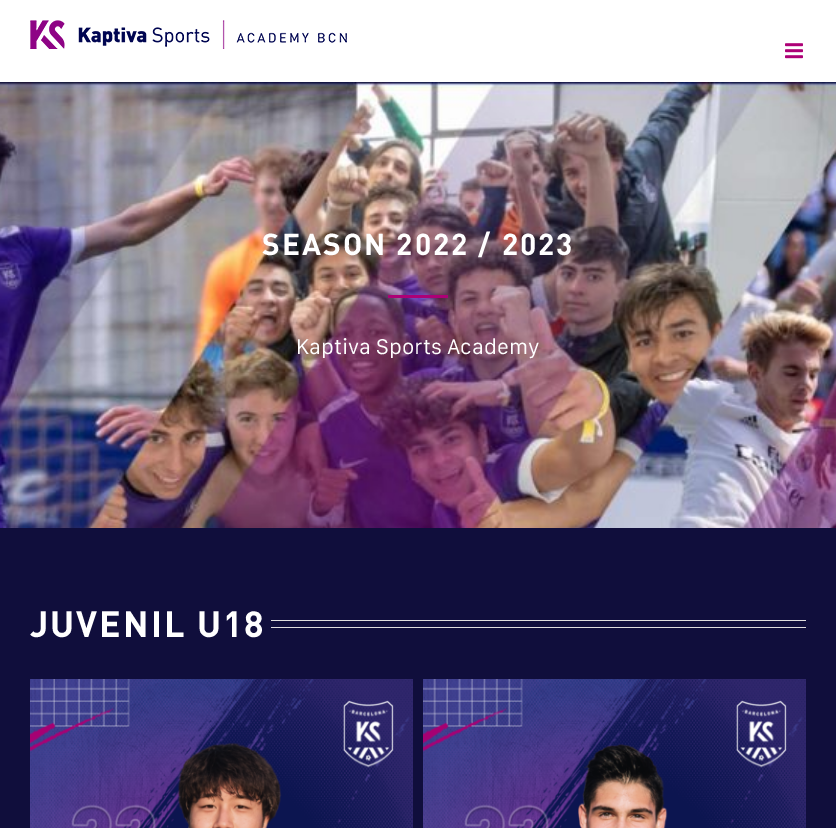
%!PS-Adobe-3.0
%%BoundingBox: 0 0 836 828
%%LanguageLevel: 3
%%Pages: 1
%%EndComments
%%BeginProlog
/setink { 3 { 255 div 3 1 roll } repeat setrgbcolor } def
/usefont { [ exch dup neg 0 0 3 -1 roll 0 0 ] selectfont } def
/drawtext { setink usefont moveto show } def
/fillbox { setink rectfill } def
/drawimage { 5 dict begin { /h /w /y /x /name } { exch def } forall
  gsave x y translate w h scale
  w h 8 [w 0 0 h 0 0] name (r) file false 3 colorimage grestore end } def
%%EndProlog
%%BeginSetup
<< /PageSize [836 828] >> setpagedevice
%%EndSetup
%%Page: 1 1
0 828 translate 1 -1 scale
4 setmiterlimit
0 0 836 828 16 14 60 fillbox
0 0 836 82 255 255 255 fillbox
(assets/img1.rgb) 30 20 317 29 drawimage
(assets/img2.rgb) 785 43 18 16 drawimage
(assets/img3.rgb) 0 82 836 446 drawimage
/DIN-Bold 30 usefont
262 255 moveto 2 0 (SEASON 2022 / 2023) ashow
388 295 60 3 173 0 118 fillbox
(Kaptiva Sports Academy) 296 354 /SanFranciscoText-Regular 22 255 255 255 drawtext
/DIN-Bold 36 usefont
30 637 moveto 2 0 (JUVENIL U18) ashow
271 620 535 1 224 222 222 fillbox
271 627 535 1 224 222 222 fillbox
(assets/img4.rgb) 30 679 383 149 drawimage
(assets/img5.rgb) 423 679 383 149 drawimage
showpage
%%EOF
